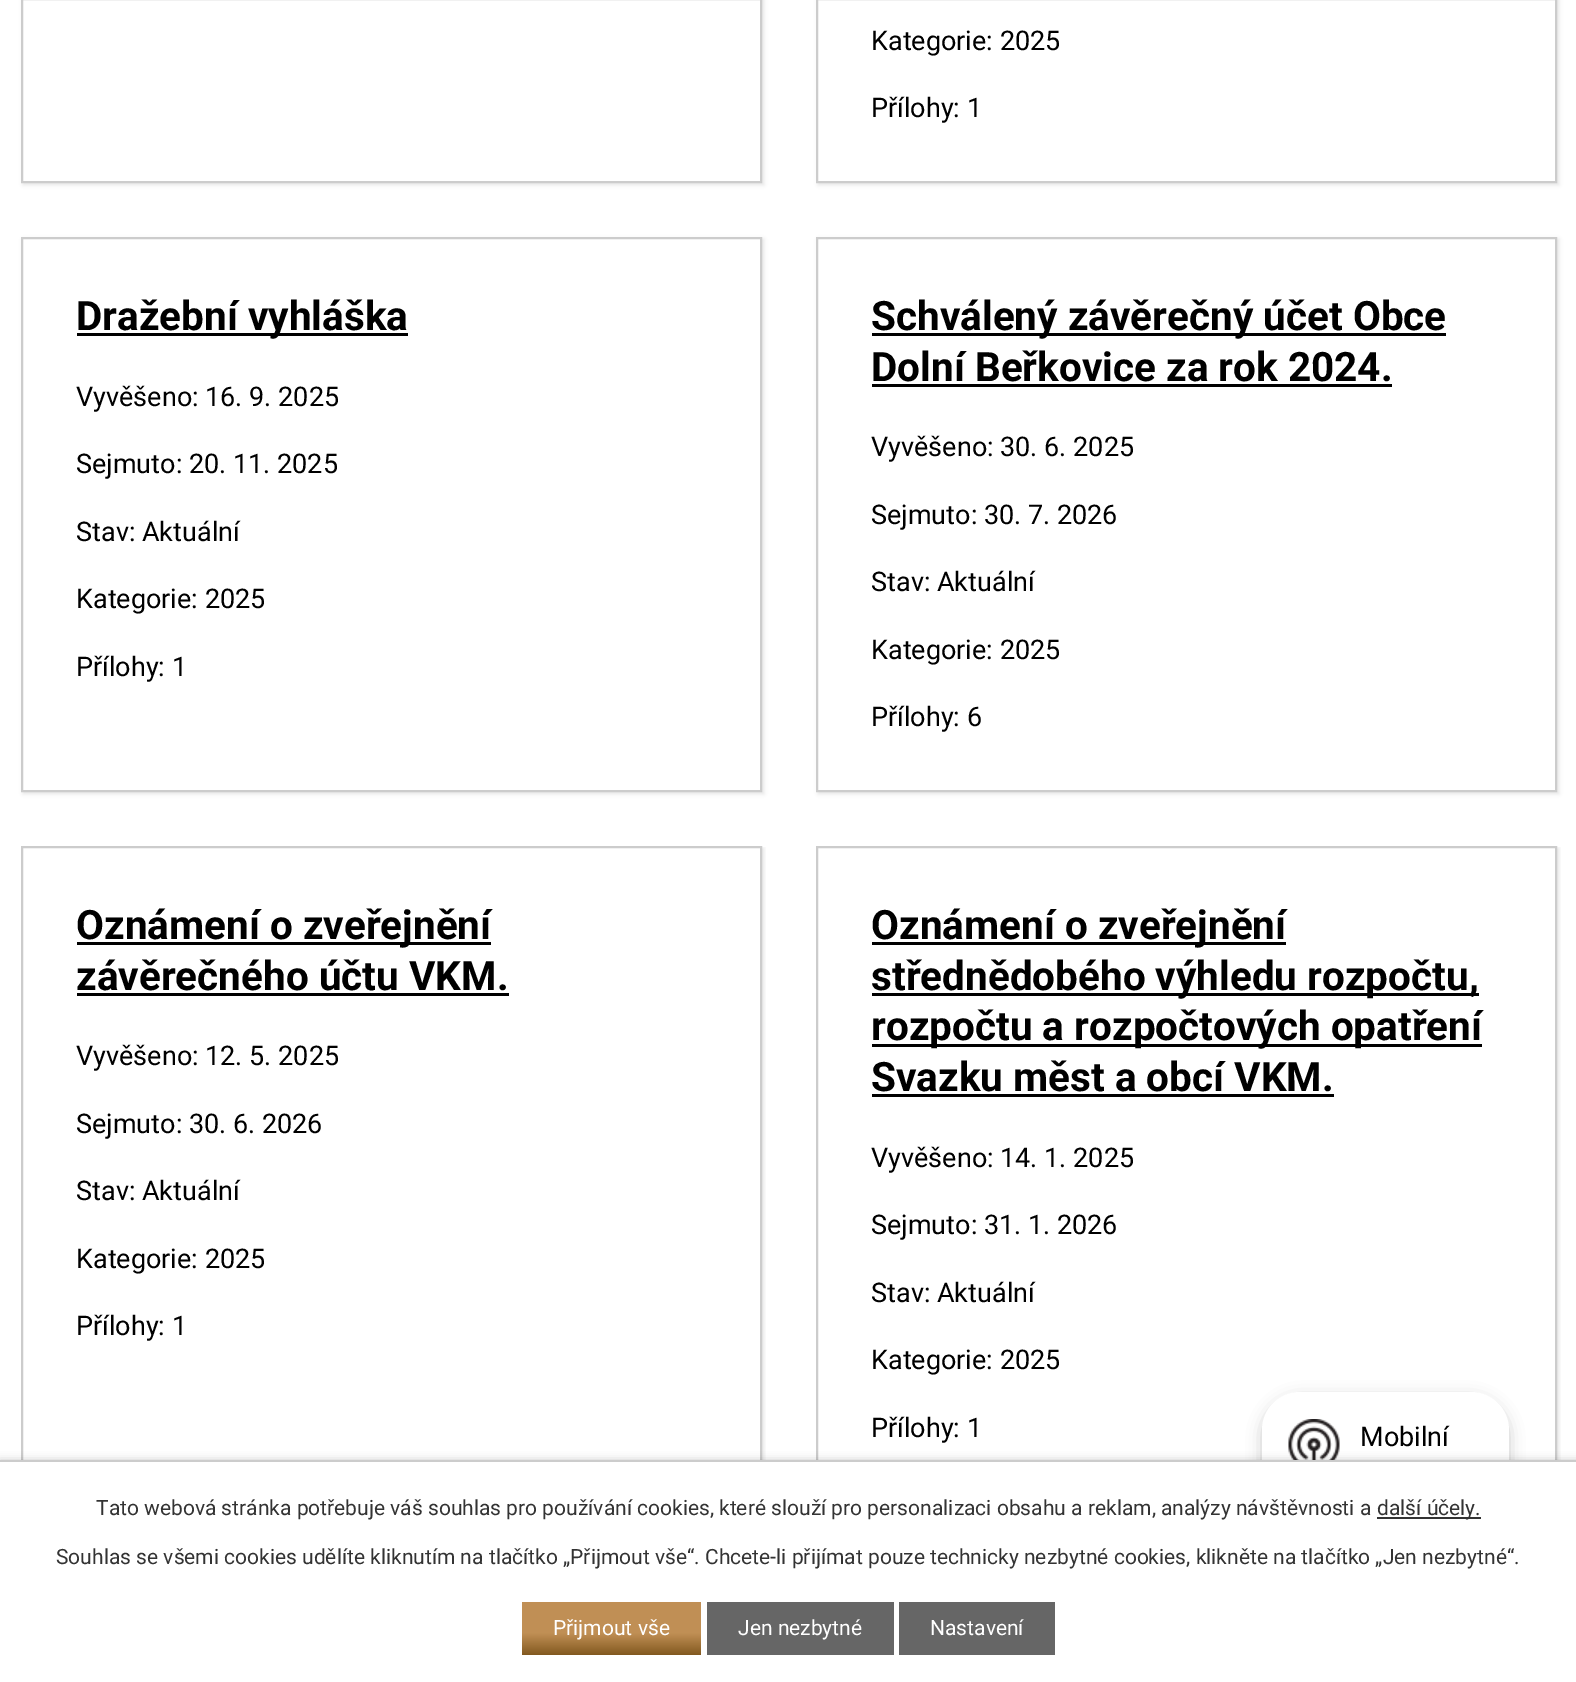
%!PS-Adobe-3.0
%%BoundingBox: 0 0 1576 1682
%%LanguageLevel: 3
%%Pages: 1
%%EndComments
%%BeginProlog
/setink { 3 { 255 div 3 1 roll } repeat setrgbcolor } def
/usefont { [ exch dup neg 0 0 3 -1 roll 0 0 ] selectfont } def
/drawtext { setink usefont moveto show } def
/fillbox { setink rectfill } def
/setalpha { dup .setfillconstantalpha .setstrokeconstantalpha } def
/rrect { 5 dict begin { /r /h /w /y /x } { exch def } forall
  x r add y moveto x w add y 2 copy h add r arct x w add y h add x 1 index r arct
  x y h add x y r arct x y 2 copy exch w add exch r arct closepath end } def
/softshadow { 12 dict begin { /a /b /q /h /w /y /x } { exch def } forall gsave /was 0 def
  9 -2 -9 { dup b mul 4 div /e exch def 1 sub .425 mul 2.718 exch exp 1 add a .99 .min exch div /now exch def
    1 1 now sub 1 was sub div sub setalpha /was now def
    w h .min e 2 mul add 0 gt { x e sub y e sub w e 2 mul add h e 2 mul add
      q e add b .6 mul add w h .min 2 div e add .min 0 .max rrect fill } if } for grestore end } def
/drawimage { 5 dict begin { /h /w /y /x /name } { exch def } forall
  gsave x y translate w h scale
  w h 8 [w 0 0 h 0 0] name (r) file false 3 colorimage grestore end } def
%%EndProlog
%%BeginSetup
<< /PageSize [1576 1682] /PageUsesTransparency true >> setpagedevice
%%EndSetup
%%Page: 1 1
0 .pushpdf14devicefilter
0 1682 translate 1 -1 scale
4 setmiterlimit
0 0 1576 1682 255 255 255 fillbox
gsave
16 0 moveto 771 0 lineto 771 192 lineto 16 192 lineto closepath 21 -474 moveto 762 -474 lineto 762 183 lineto 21 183 lineto closepath eoclip newpath
0 0 0 setink
23 -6 741 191 0 2 0.1 softshadow
grestore
204 204 204 setink
2 setlinewidth
22 -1 739 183 rectstroke
gsave
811 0 moveto 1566 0 lineto 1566 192 lineto 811 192 lineto closepath 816 -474 moveto 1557 -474 lineto 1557 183 lineto 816 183 lineto closepath eoclip newpath
0 0 0 setink
818 -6 741 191 0 2 0.1 softshadow
grestore
817 -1 739 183 rectstroke
(Kategorie: 2025) 871 50 /Roboto-Regular 27 0 0 0 drawtext
(Přílohy: 1) 871 117 /Roboto-Regular 27 0 0 0 drawtext
gsave
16 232 moveto 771 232 lineto 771 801 lineto 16 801 lineto closepath 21 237 moveto 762 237 lineto 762 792 lineto 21 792 lineto closepath eoclip newpath
23 239 741 555 0 2 0.1 softshadow
grestore
204 204 204 setink
22 238 739 553 rectstroke
77 333 331 3 0 0 0 fillbox
(Dražební vyhláška) 76 330 /Roboto-Bold 40.5 0 0 0 drawtext
(Vyvěšeno: 16. 9. 2025) 76 406 /Roboto-Regular 27 0 0 0 drawtext
(Sejmuto: 20. 11. 2025) 76 473 /Roboto-Regular 27 0 0 0 drawtext
(Stav: Aktuální) 76 541 /Roboto-Regular 27 0 0 0 drawtext
(Kategorie: 2025) 76 608 /Roboto-Regular 27 0 0 0 drawtext
(Přílohy: 1) 76 676 /Roboto-Regular 27 0 0 0 drawtext
gsave
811 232 moveto 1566 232 lineto 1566 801 lineto 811 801 lineto closepath 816 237 moveto 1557 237 lineto 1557 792 lineto 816 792 lineto closepath eoclip newpath
818 239 741 555 0 2 0.1 softshadow
grestore
204 204 204 setink
817 238 739 553 rectstroke
872 333 574 3 0 0 0 fillbox
(Schválený závěrečný účet Obce) 871 330 /Roboto-Bold 40.5 0 0 0 drawtext
(Dolní Beřkovice za rok 2024.) 871 381 /Roboto-Bold 40.5 0 0 0 drawtext
872 384 520 3 0 0 0 fillbox
(Vyvěšeno: 30. 6. 2025) 871 456 /Roboto-Regular 27 0 0 0 drawtext
(Sejmuto: 30. 7. 2026) 871 524 /Roboto-Regular 27 0 0 0 drawtext
(Stav: Aktuální) 871 591 /Roboto-Regular 27 0 0 0 drawtext
(Kategorie: 2025) 871 659 /Roboto-Regular 27 0 0 0 drawtext
(Přílohy: 6) 871 726 /Roboto-Regular 27 0 0 0 drawtext
gsave
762 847 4 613 rectclip
23 848 741 657 0 2 0.1 softshadow
grestore
204 204 204 setink
22 847 739 655 rectstroke
77 942 414 3 0 0 0 fillbox
(Oznámení o zveřejnění) 76 939 /Roboto-Bold 40.5 0 0 0 drawtext
(závěrečného účtu VKM.) 76 990 /Roboto-Bold 40.5 0 0 0 drawtext
77 993 432 3 0 0 0 fillbox
(Vyvěšeno: 12. 5. 2025) 76 1065 /Roboto-Regular 27 0 0 0 drawtext
(Sejmuto: 30. 6. 2026) 76 1133 /Roboto-Regular 27 0 0 0 drawtext
(Stav: Aktuální) 76 1200 /Roboto-Regular 27 0 0 0 drawtext
(Kategorie: 2025) 76 1268 /Roboto-Regular 27 0 0 0 drawtext
(Přílohy: 1) 76 1335 /Roboto-Regular 27 0 0 0 drawtext
gsave
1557 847 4 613 rectclip
818 848 741 657 0 2 0.1 softshadow
grestore
204 204 204 setink
817 847 739 655 rectstroke
872 942 414 3 0 0 0 fillbox
(Oznámení o zveřejnění) 871 939 /Roboto-Bold 40.5 0 0 0 drawtext
872 993 607 3 0 0 0 fillbox
(střednědobého výhledu rozpočtu,) 871 990 /Roboto-Bold 40.5 0 0 0 drawtext
872 1044 610 3 0 0 0 fillbox
(rozpočtu a rozpočtových opatření) 871 1040 /Roboto-Bold 40.5 0 0 0 drawtext
(Svazku měst a obcí VKM.) 871 1091 /Roboto-Bold 40.5 0 0 0 drawtext
872 1094 462 3 0 0 0 fillbox
(Vyvěšeno: 14. 1. 2025) 871 1167 /Roboto-Regular 27 0 0 0 drawtext
(Sejmuto: 31. 1. 2026) 871 1234 /Roboto-Regular 27 0 0 0 drawtext
(Stav: Aktuální) 871 1302 /Roboto-Regular 27 0 0 0 drawtext
(Kategorie: 2025) 871 1369 /Roboto-Regular 27 0 0 0 drawtext
(Přílohy: 1) 871 1437 /Roboto-Regular 27 0 0 0 drawtext
1262 1397 247 223 38 7.5 0.2 softshadow
255 255 255 setink
1262 1392 247 224 38 rrect fill
(assets/img1.rgb) 1288 1419 52 41 drawimage
(Mobilní) 1360 1446 /Roboto-Regular 27 0 0 0 drawtext
0 1460 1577 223 0 4 0.2 softshadow
0 1462 1576 220 255 255 255 fillbox
0 1460 1576 2 204 204 204 fillbox
(Tato webová stránka potřebuje váš souhlas pro používání cookies, které slouží pro personalizaci obsahu a reklam, analýzy návštěvnosti a) 96 1515 /Roboto-Regular 21 51 51 51 drawtext
1377 1517 104 2 51 51 51 fillbox
(další účely.) 1377 1515 /Roboto-Regular 21 51 51 51 drawtext
(Souhlas se všemi cookies udělíte kliknutím na tlačítko „Přijmout vše“. Chcete-li přijímat pouze technicky nezbytné cookies, klikněte na tlačítko „Jen nezbytné“.) 56 1564 /Roboto-Regular 21 51 51 51 drawtext
gsave 522 1602 moveto 701 1602 lineto 701 1655 lineto 522 1655 lineto closepath clip newpath
<< /ShadingType 2 /ColorSpace /DeviceRGB /Coords [611 1602 611 1655] /Extend [true true] /Function << /FunctionType 3 /Domain [0 1] /Functions [<< /FunctionType 2 /Domain [0 1] /C0 [0.753 0.561 0.333] /C1 [0.753 0.561 0.333] /N 1 >> << /FunctionType 2 /Domain [0 1] /C0 [0.753 0.561 0.333] /C1 [0.51 0.349 0.125] /N 1 >>] /Bounds [0.59] /Encode [0 1 0 1] >> >> shfill grestore
(Přijmout vše) 553 1635 /Roboto-Regular 21 255 255 255 drawtext
707 1602 187 53 102 102 102 fillbox
(Jen nezbytné) 738 1635 /Roboto-Regular 21 255 255 255 drawtext
899 1602 156 53 102 102 102 fillbox
(Nastavení) 930 1635 /Roboto-Regular 21 255 255 255 drawtext
.poppdf14devicefilter showpage
%%EOF
